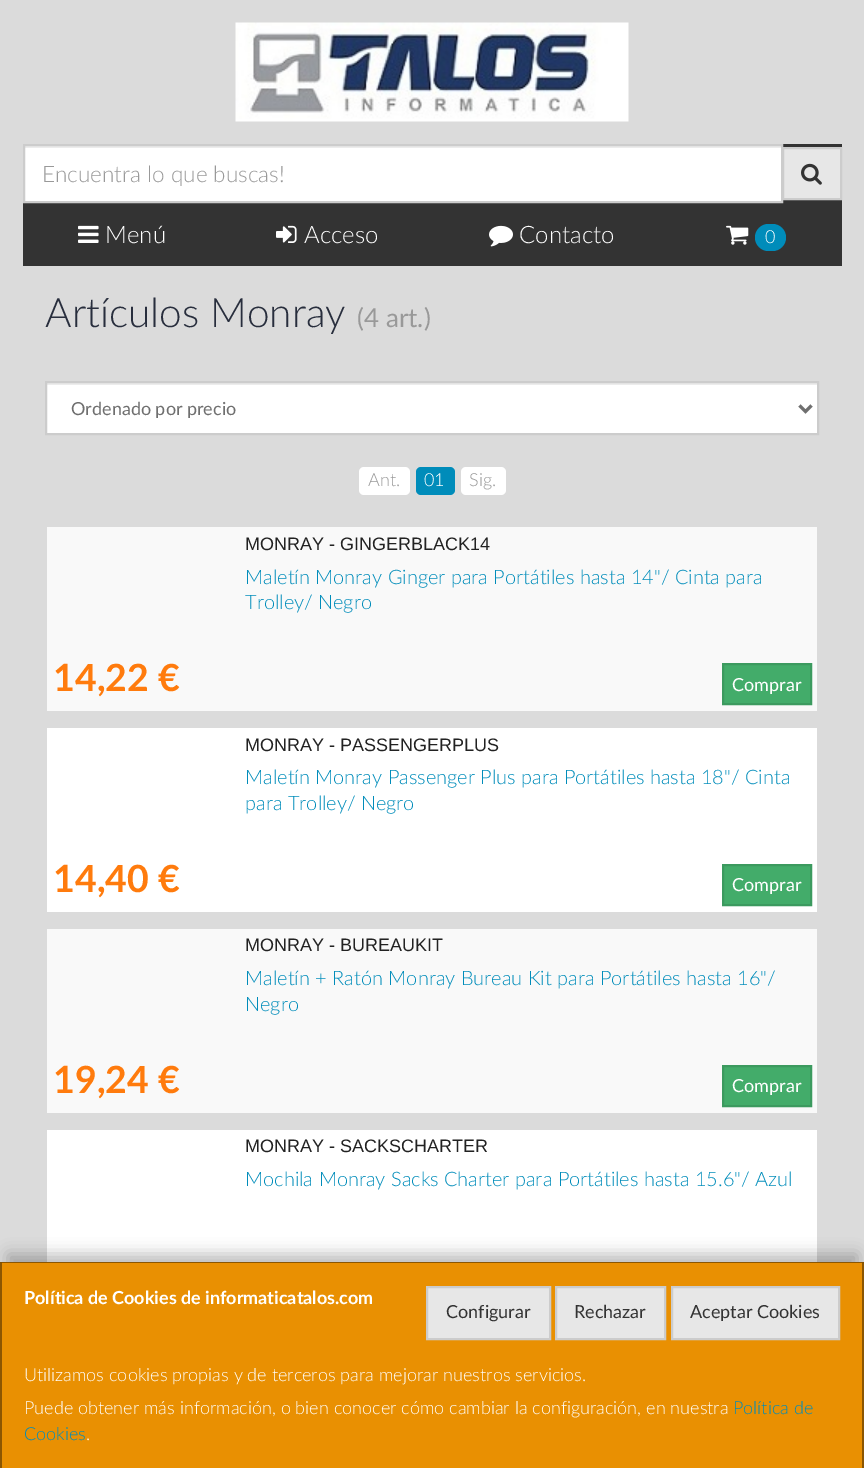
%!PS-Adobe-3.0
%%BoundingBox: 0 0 864 1468
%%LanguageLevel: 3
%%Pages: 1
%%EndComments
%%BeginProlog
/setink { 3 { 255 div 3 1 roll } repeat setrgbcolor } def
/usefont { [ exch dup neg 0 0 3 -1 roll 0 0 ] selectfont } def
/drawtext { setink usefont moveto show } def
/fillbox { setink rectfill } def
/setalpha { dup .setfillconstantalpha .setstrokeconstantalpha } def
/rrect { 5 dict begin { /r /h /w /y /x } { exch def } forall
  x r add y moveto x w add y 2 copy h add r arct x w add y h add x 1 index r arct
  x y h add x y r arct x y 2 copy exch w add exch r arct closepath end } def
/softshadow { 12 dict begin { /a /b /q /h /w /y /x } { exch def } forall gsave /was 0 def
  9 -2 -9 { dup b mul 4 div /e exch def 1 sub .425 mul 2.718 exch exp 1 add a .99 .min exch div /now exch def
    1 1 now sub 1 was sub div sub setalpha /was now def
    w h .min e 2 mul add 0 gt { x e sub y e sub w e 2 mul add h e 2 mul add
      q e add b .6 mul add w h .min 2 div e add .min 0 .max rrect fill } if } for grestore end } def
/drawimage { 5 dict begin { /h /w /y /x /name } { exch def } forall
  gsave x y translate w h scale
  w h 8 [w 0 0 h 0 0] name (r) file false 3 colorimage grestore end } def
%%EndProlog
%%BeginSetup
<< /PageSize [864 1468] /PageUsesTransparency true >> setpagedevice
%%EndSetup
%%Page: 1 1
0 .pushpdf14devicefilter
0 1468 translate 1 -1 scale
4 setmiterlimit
0 0 864 1468 219 219 219 fillbox
(assets/img1.rgb) 235 22 394 100 drawimage
23 144 819 122 51 51 51 fillbox
25 148 756 53 255 255 255 fillbox
24 146 758 2 236 236 236 fillbox
231 231 231 setink
783 148 moveto 841 148 lineto 841 199 lineto 783 199 lineto closepath gsave fill grestore
204 204 204 setink
2 setlinewidth
stroke
24 145 758 57 rectstroke
(Encuentra lo que buscas!) 42 182 /Lato-Light 22.5 153 153 153 drawtext
(assets/img2.rgb) 801 163 21 22 drawimage
(assets/img3.rgb) 78 225 21 18 drawimage
(Menú) 105 243 /Lato-Light 24 255 255 255 drawtext
(assets/img4.rgb) 276 225 21 18 drawimage
(Acceso) 304 243 /Lato-Light 24 255 255 255 drawtext
(assets/img5.rgb) 489 225 24 22 drawimage
(Contacto) 519 243 /Lato-Light 24 255 255 255 drawtext
(assets/img6.rgb) 726 225 23 20 drawimage
0 140 186 setink
755 224 31 27 13.5 rrect fill
(0) 765 243 /Lato-Light 18 255 255 255 drawtext
(Artículos Monray) 45 327 /Lato-Light 40.5 40 46 61 drawtext
(\(4 art.\)) 357 327 /Lato-Regular 26 153 153 153 drawtext
47 385 770 48 255 255 255 fillbox
47 383 771 2 236 236 236 fillbox
204 204 204 setink
46 382 772 52 rectstroke
111 111 111 setink
3 setlinewidth
799.5 405.5 moveto 805.5 411.5 lineto 811.5 405.5 lineto stroke
(Ordenado por precio) 71 415 /Lato-Regular 18 111 111 111 drawtext
255 255 255 setink
359 467 51 28 5 rrect fill
(Ant.) 368 486 /Lato-Light 18 153 153 153 drawtext
0 140 186 setink
416 467 39 28 5 rrect fill
(01) 424 486 /Lato-Light 18 255 255 255 drawtext
461 467 45 28 5 rrect fill
(Sig.) 469 486 /Lato-Light 18 153 153 153 drawtext
47 527 770 184 249 249 249 fillbox
(MONRAY - GINGERBLACK14) 245 550 /LiberationSans-Regular 18 34 34 34 drawtext
(Maletín Monray Ginger para Portátiles hasta 14"/ Cinta para) 245 584 /Lato-Light 19.95 0 140 186 drawtext
(Trolley/ Negro) 245 609 /Lato-Light 19.95 0 140 186 drawtext
(14,22 €) 53 691 /Lato-Bold 37.5 255 123 13 drawtext
67 172 106 setink
723 664 moveto 811 664 lineto 811 704 lineto 723 704 lineto closepath gsave fill grestore
60 154 95 setink
2 setlinewidth
stroke
(Comprar) 732 691 /Lato-Regular 18 255 255 255 drawtext
47 728 770 184 255 255 255 fillbox
(MONRAY - PASSENGERPLUS) 245 751 /LiberationSans-Regular 18 34 34 34 drawtext
(Maletín Monray Passenger Plus para Portátiles hasta 18"/ Cinta) 245 784 /Lato-Light 19.95 0 140 186 drawtext
(para Trolley/ Negro) 245 810 /Lato-Light 19.95 0 140 186 drawtext
(14,40 €) 53 892 /Lato-Bold 37.5 255 123 13 drawtext
67 172 106 setink
723 865 moveto 811 865 lineto 811 905 lineto 723 905 lineto closepath gsave fill grestore
60 154 95 setink
stroke
(Comprar) 732 891 /Lato-Regular 18 255 255 255 drawtext
47 929 770 184 249 249 249 fillbox
(MONRAY - BUREAUKIT) 245 951 /LiberationSans-Regular 18 34 34 34 drawtext
(Maletín + Ratón Monray Bureau Kit para Portátiles hasta 16"/) 245 985 /Lato-Light 19.95 0 140 186 drawtext
(Negro) 245 1011 /Lato-Light 19.95 0 140 186 drawtext
(19,24 €) 53 1093 /Lato-Bold 37.5 255 123 13 drawtext
67 172 106 setink
723 1066 moveto 811 1066 lineto 811 1106 lineto 723 1106 lineto closepath gsave fill grestore
60 154 95 setink
stroke
(Comprar) 732 1092 /Lato-Regular 18 255 255 255 drawtext
47 1130 770 132 255 255 255 fillbox
(MONRAY - SACKSCHARTER) 245 1152 /LiberationSans-Regular 18 34 34 34 drawtext
(Mochila Monray Sacks Charter para Portátiles hasta 15.6"/ Azul) 245 1186 /Lato-Light 19.95 0 140 186 drawtext
0 0 0 setink
8 1254 849 192 0 7.5 0.25 softshadow
0 1262 864 206 233 144 2 fillbox
140 86 1 setink
0 1262 moveto 864 1262 lineto 862 1263 lineto 2 1263 lineto closepath fill
0.4 setalpha
0 0 0 setink
864 1262 moveto 864 1468 lineto 862 1468 lineto 862 1263 lineto closepath fill
0 1468 moveto 0 1262 lineto 2 1263 lineto 2 1468 lineto closepath fill
1 setalpha
(Política de Cookies de informaticatalos.com) 24 1304 /Lato-Bold 18 255 255 255 drawtext
231 231 231 setink
427 1287 moveto 550 1287 lineto 550 1339 lineto 427 1339 lineto closepath gsave fill grestore
204 204 204 setink
stroke
(Configurar) 446 1318 /Lato-Regular 18 51 51 51 drawtext
231 231 231 setink
556 1287 moveto 665 1287 lineto 665 1339 lineto 556 1339 lineto closepath gsave fill grestore
204 204 204 setink
stroke
(Rechazar) 574 1318 /Lato-Regular 18 51 51 51 drawtext
231 231 231 setink
672 1287 moveto 839 1287 lineto 839 1339 lineto 672 1339 lineto closepath gsave fill grestore
204 204 204 setink
stroke
(Aceptar Cookies) 690 1318 /Lato-Regular 18 51 51 51 drawtext
(Utilizamos cookies propias y de terceros para mejorar nuestros servicios.) 24 1381 /Lato-Light 18 255 255 255 drawtext
(Puede obtener más información, o bien conocer cómo cambiar la configuración, en nuestra) 24 1414 /Lato-Light 18 255 255 255 drawtext
(Política de) 733 1414 /Lato-Light 18 0 140 186 drawtext
(Cookies) 24 1440 /Lato-Light 18 0 140 186 drawtext
(.) 86 1440 /Lato-Light 18 255 255 255 drawtext
.poppdf14devicefilter showpage
%%EOF
